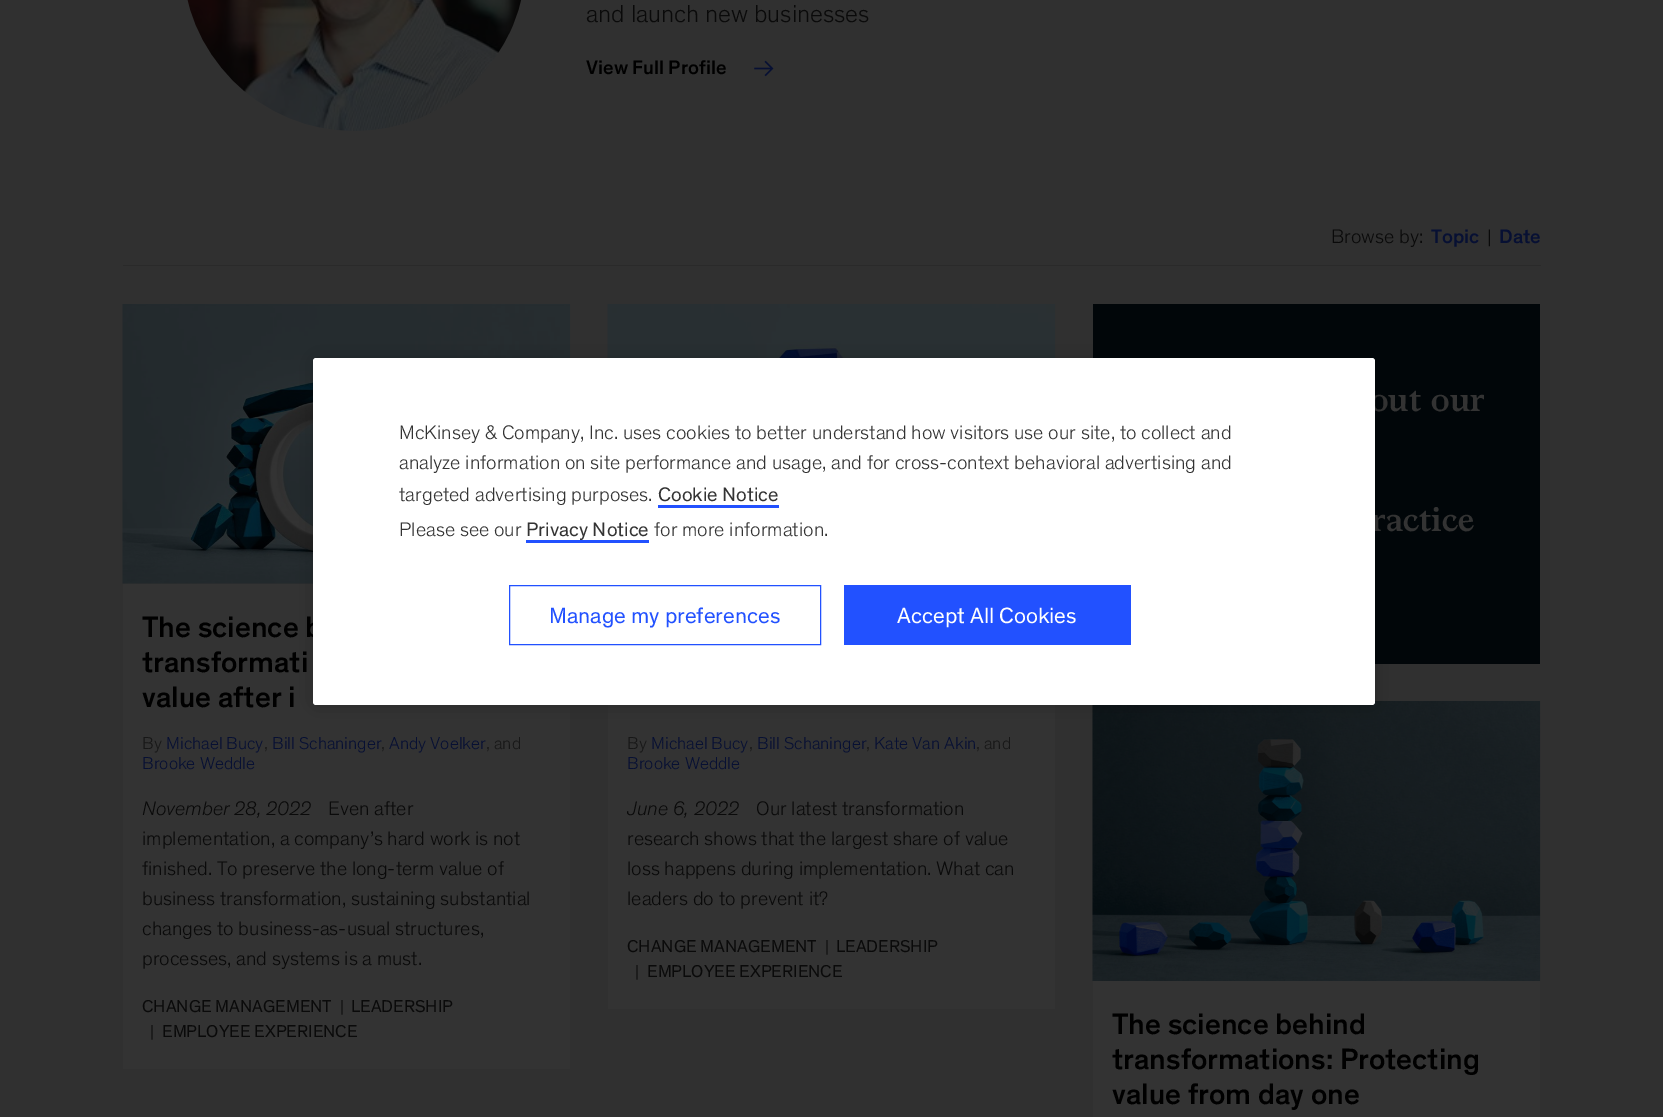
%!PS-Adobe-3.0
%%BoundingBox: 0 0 1663 1117
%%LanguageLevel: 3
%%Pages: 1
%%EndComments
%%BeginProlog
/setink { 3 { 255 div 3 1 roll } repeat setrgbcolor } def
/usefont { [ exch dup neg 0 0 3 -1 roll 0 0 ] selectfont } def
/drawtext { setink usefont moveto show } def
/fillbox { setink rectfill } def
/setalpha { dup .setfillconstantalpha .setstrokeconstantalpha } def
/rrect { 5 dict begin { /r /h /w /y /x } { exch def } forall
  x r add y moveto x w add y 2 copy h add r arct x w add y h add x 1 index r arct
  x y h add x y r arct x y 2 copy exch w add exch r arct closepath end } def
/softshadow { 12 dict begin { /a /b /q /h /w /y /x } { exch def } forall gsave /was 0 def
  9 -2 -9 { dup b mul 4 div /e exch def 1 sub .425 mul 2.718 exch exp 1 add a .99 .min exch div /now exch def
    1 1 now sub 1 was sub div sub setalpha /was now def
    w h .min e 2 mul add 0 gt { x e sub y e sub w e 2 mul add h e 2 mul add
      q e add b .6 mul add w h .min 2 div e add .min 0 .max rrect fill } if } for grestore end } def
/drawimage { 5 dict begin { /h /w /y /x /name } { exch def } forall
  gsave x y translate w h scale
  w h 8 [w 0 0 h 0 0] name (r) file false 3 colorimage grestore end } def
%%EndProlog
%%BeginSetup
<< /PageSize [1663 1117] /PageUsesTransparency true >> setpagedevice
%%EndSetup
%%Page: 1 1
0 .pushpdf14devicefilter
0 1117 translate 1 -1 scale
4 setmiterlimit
0 0 1663 1117 48 48 48 fillbox
(assets/img1.rgb) 187 0 335 131 drawimage
(and launch new businesses) 586 22 /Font-Light 25 10 10 10 drawtext
(View Full Profile) 586 74 /Font-Medium 20 0 0 0 drawtext
(assets/img2.rgb) 754 60 20 17 drawimage
123 265 1418 1 42 42 42 fillbox
(Browse by:) 1331 243 /Font-Light 20 10 10 10 drawtext
(Topic) 1431 243 /Font-Medium 20 7 16 51 drawtext
(|) 1487 243 /Font-Light 20 10 10 10 drawtext
(Date) 1499 243 /Font-Medium 20 7 16 51 drawtext
1093 304 447 360 1 6 9 fillbox
(out our) 1370 411 /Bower-Bold 35 51 51 51 drawtext
(ractice) 1371 531 /Bower-Bold 35 51 51 51 drawtext
123 584 447 485 51 51 51 fillbox
(assets/img3.rgb) 122 304 449 280 drawimage
(The science b) 142 637 /Font-Medium 30 0 0 0 drawtext
(transformati) 142 672 /Font-Medium 30 0 0 0 drawtext
(value after i) 142 707 /Font-Medium 30 0 0 0 drawtext
(By) 142 749 /Font-Light 17.5 23 23 23 drawtext
(Michael Bucy) 166 749 /Font-Light 17.5 7 16 51 drawtext
(,) 264 749 /Font-Light 17.5 23 23 23 drawtext
(Bill Schaninger) 272 749 /Font-Light 17.5 7 16 51 drawtext
(,) 381 749 /Font-Light 17.5 23 23 23 drawtext
(Andy Voelker) 389 749 /Font-Light 17.5 7 16 51 drawtext
(, and) 486 749 /Font-Light 17.5 23 23 23 drawtext
(Brooke Weddle) 142 769 /Font-Light 17.5 7 16 51 drawtext
(November 28, 2022) 142 815 /Font-LightItalic 20 10 10 10 drawtext
(‑) 317 815 /LiberationSans-Italic 20 10 10 10 drawtext
(Even after) 328 815 /Font-Light 20 10 10 10 drawtext
(implementation, a company’s hard work is not) 142 845 /Font-Light 20 10 10 10 drawtext
(finished. To preserve the long-term value of) 142 875 /Font-Light 20 10 10 10 drawtext
(business transformation, sustaining substantial) 142 905 /Font-Light 20 10 10 10 drawtext
(changes to business-as-usual structures,) 142 935 /Font-Light 20 10 10 10 drawtext
(processes, and systems is a must.) 142 965 /Font-Light 20 10 10 10 drawtext
(CHANGE MANAGEMENT) 142 1012 /Font-Regular 17.5 10 10 10 drawtext
(|) 340 1012 /Font-Light 17.5 10 10 10 drawtext
(LEADERSHIP) 351 1012 /Font-Regular 17.5 10 10 10 drawtext
(|) 150 1037 /Font-Light 17.5 10 10 10 drawtext
(EMPLOYEE EXPERIENCE) 162 1037 /Font-Regular 17.5 10 10 10 drawtext
608 705 447 304 51 51 51 fillbox
(assets/img4.rgb) 607 304 449 54 drawimage
(By) 627 749 /Font-Light 17.5 23 23 23 drawtext
(Michael Bucy) 651 749 /Font-Light 17.5 7 16 51 drawtext
(,) 749 749 /Font-Light 17.5 23 23 23 drawtext
(Bill Schaninger) 757 749 /Font-Light 17.5 7 16 51 drawtext
(,) 866 749 /Font-Light 17.5 23 23 23 drawtext
(Kate Van Akin) 874 749 /Font-Light 17.5 7 16 51 drawtext
(, and) 976 749 /Font-Light 17.5 23 23 23 drawtext
(Brooke Weddle) 627 769 /Font-Light 17.5 7 16 51 drawtext
(June 6, 2022) 627 815 /Font-LightItalic 20 10 10 10 drawtext
(‑) 744 815 /LiberationSans-Italic 20 10 10 10 drawtext
(Our latest transformation) 756 815 /Font-Light 20 10 10 10 drawtext
(research shows that the largest share of value) 627 845 /Font-Light 20 10 10 10 drawtext
(loss happens during implementation. What can) 627 875 /Font-Light 20 10 10 10 drawtext
(leaders do to prevent it?) 627 905 /Font-Light 20 10 10 10 drawtext
(CHANGE MANAGEMENT) 627 952 /Font-Regular 17.5 10 10 10 drawtext
(|) 825 952 /Font-Light 17.5 10 10 10 drawtext
(LEADERSHIP) 836 952 /Font-Regular 17.5 10 10 10 drawtext
(|) 635 977 /Font-Light 17.5 10 10 10 drawtext
(EMPLOYEE EXPERIENCE) 647 977 /Font-Regular 17.5 10 10 10 drawtext
1093 981 447 136 51 51 51 fillbox
(assets/img5.rgb) 1092 701 449 280 drawimage
(The science behind) 1112 1034 /Font-Medium 30 0 0 0 drawtext
(transformations: Protecting) 1112 1069 /Font-Medium 30 0 0 0 drawtext
(value from day one) 1112 1104 /Font-Medium 30 0 0 0 drawtext
313 358 1062 347 3 11 0.2 softshadow
255 255 255 setink
313 358 1062 347 3 rrect fill
(McKinsey & Company, Inc. uses cookies to better understand how visitors use our site, to collect and) 399 439 /Font-Light 20 51 51 51 drawtext
(analyze information on site performance and usage, and for cross-context behavioral advertising and) 399 469 /Font-Light 20 51 51 51 drawtext
(targeted advertising purposes.) 399 501 /Font-Light 20 51 51 51 drawtext
(Cookie Notice) 658 501 /Font-Regular 20 51 51 51 drawtext
658 505 121 3 34 81 255 fillbox
(Please see our) 399 536 /Font-Light 20 51 51 51 drawtext
(Privacy Notice) 526 536 /Font-Regular 20 51 51 51 drawtext
526 540 123 3 34 81 255 fillbox
(for more information.) 654 536 /Font-Light 20 51 51 51 drawtext
34 81 255 setink
509.5 585.5 311 59 rectstroke
(Manage my preferences) 549 623 /Font-Regular 22.5 34 81 255 drawtext
844 585 287 60 34 81 255 fillbox
(Accept All Cookies) 897 623 /Font-Regular 22.5 255 255 255 drawtext
.poppdf14devicefilter showpage
%%EOF
